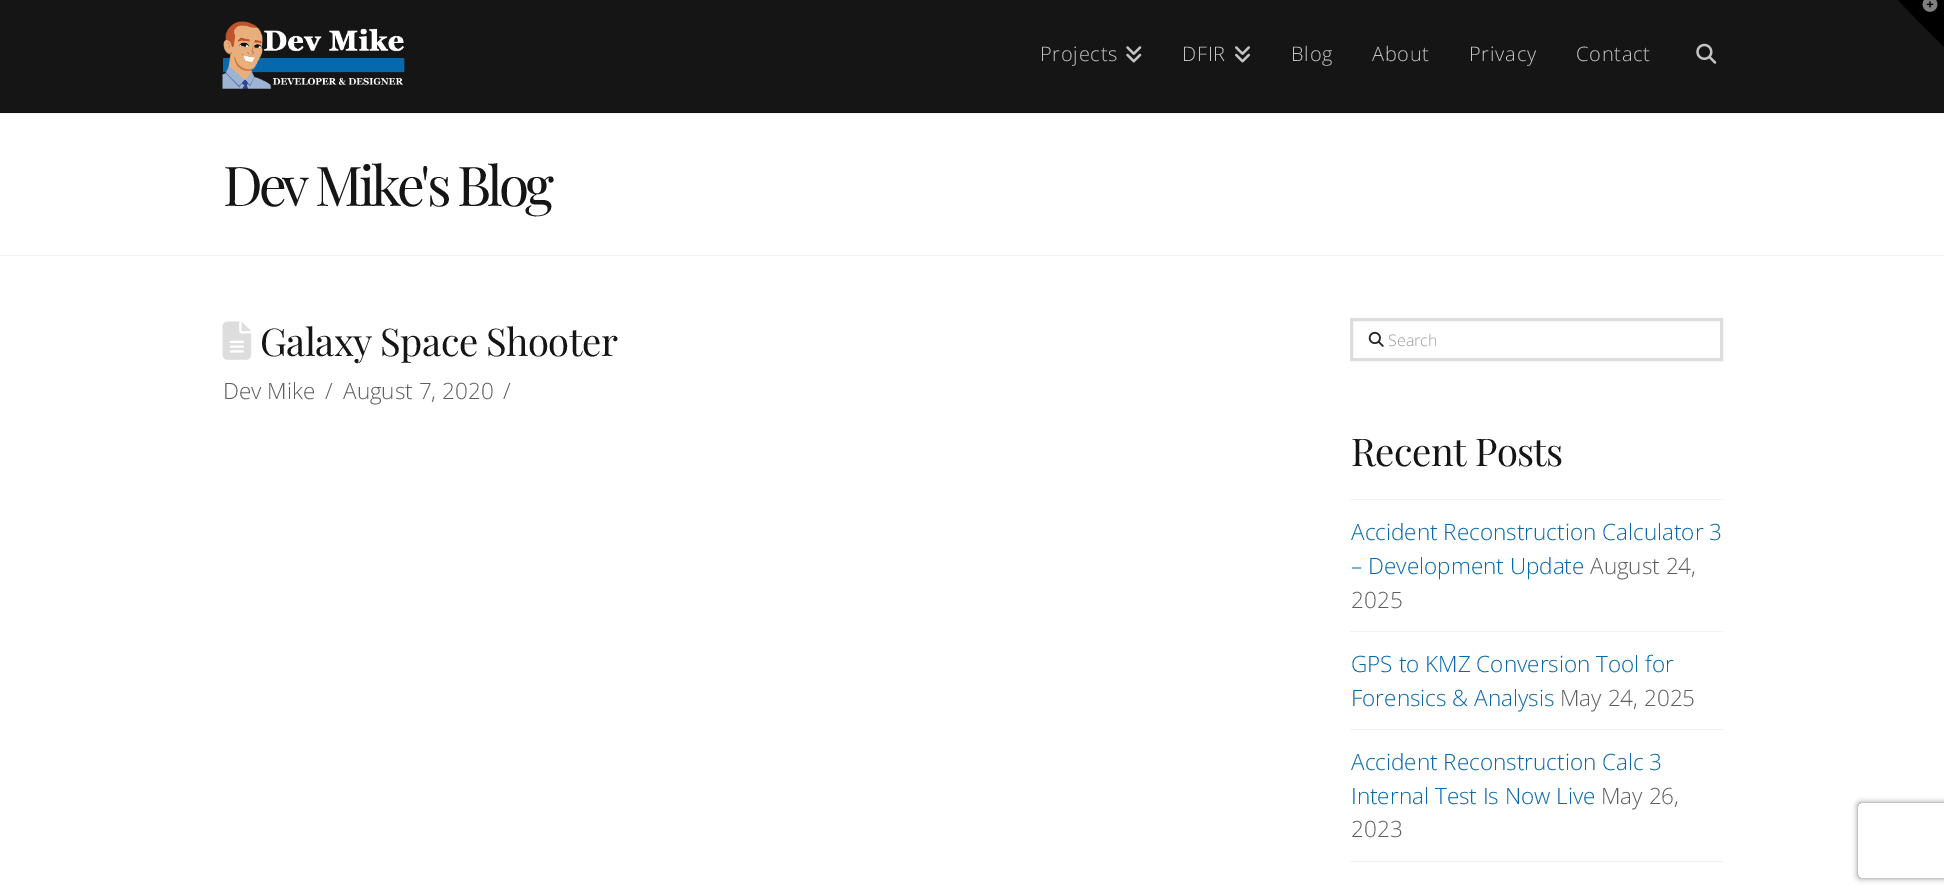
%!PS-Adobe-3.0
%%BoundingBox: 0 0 1944 894
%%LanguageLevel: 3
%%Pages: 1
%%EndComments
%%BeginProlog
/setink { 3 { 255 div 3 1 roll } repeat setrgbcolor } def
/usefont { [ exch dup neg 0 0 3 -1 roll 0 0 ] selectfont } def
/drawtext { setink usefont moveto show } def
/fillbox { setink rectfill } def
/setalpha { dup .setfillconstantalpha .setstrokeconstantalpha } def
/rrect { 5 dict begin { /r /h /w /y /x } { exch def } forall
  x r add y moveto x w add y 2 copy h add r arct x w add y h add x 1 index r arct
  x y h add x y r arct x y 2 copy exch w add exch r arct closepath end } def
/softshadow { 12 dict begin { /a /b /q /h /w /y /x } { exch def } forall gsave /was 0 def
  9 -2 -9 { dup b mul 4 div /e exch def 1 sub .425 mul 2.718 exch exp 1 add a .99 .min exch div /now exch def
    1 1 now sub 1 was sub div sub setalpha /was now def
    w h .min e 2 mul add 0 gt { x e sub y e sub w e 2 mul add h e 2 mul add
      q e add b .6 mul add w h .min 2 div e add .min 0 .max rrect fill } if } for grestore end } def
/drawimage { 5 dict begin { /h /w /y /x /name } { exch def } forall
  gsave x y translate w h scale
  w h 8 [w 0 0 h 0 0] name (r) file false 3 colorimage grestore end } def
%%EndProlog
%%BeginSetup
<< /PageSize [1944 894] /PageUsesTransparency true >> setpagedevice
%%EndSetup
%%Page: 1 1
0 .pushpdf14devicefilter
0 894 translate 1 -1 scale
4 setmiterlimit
0 0 1944 894 255 255 255 fillbox
0 0 1944 113 21 21 21 fillbox
0 0 0 setink
1898 0 moveto 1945 0 lineto 1921 24 lineto closepath fill
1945 0 moveto 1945 48 lineto 1921 24 lineto closepath fill
(assets/img1.rgb) 1922 0 16 12 drawimage
(assets/img2.rgb) 222 21 183 68 drawimage
/OpenSans-Light 20 usefont
197 197 197 setink
1040 61 moveto 0.75 0 (Projects) ashow
(assets/img3.rgb) 1126 46 16 17 drawimage
1182 61 moveto 0.75 0 (DFIR) ashow
(assets/img4.rgb) 1235 46 15 17 drawimage
1291 61 moveto 0.75 0 (Blog) ashow
1372 61 moveto 0.75 0 (About) ashow
1469 61 moveto 0.75 0 (Privacy) ashow
1576 61 moveto 0.75 0 (Contact) ashow
(assets/img5.rgb) 1696 43 21 21 drawimage
0 113 1944 1 242 242 242 fillbox
0 255 1944 1 242 242 242 fillbox
/PlayfairDisplay-Regular 55 usefont
21 21 21 setink
223 206 moveto -4.1 0 (Dev Mike's Blog) ashow
(assets/img6.rgb) 222 321 30 39 drawimage
/PlayfairDisplay-Regular 38.25 usefont
260 356 moveto -0.6 0 (Galaxy Space Shooter) ashow
(Dev Mike) 223 399 /OpenSans-Light 22.5 94 94 94 drawtext
(/) 325 399 /OpenSans-Light 22.5 94 94 94 drawtext
(August 7, 2020) 343 399 /OpenSans-Light 22.5 94 94 94 drawtext
(/) 503 399 /OpenSans-Light 22.5 94 94 94 drawtext
221 221 221 setink
3 setlinewidth
1351.5 319.5 370 40 rectstroke
(assets/img7.rgb) 1368 331 16 16 drawimage
(Search) 1388 346 /OpenSans-Light 16 153 153 153 drawtext
/PlayfairDisplay-Regular 38.25 usefont
21 21 21 setink
1351 466 moveto -0.6 0 (Recent Posts) ashow
1350 499 373 1 242 242 242 fillbox
1350 631 373 1 242 242 242 fillbox
(Accident Reconstruction Calculator 3) 1351 540 /OpenSans-Light 22.5 7 105 173 drawtext
(– Development Update) 1351 574 /OpenSans-Light 22.5 7 105 173 drawtext
(August 24,) 1590 574 /OpenSans-Light 22.5 94 94 94 drawtext
(2025) 1351 608 /OpenSans-Light 22.5 94 94 94 drawtext
1350 729 373 1 242 242 242 fillbox
(GPS to KMZ Conversion Tool for) 1351 672 /OpenSans-Light 22.5 7 105 173 drawtext
(Forensics & Analysis) 1351 706 /OpenSans-Light 22.5 7 105 173 drawtext
(May 24, 2025) 1560 706 /OpenSans-Light 22.5 94 94 94 drawtext
1350 861 373 1 242 242 242 fillbox
(Accident Reconstruction Calc 3) 1351 770 /OpenSans-Light 22.5 7 105 173 drawtext
(Internal Test Is Now Live) 1351 804 /OpenSans-Light 22.5 7 105 173 drawtext
(May 26,) 1601 804 /OpenSans-Light 22.5 94 94 94 drawtext
(2023) 1351 837 /OpenSans-Light 22.5 94 94 94 drawtext
gsave
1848 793 moveto 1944 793 lineto 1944 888 lineto 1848 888 lineto closepath 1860.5 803 moveto 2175.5 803 lineto 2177 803 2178 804 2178 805.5 curveto 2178 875.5 lineto 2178 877 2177 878 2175.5 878 curveto 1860.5 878 lineto 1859 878 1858 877 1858 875.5 curveto 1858 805.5 lineto 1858 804 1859 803 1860.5 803 curveto closepath eoclip newpath
128 128 128 setink
1858 803 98 75 2.5 3 1 softshadow
grestore
.poppdf14devicefilter showpage
%%EOF
